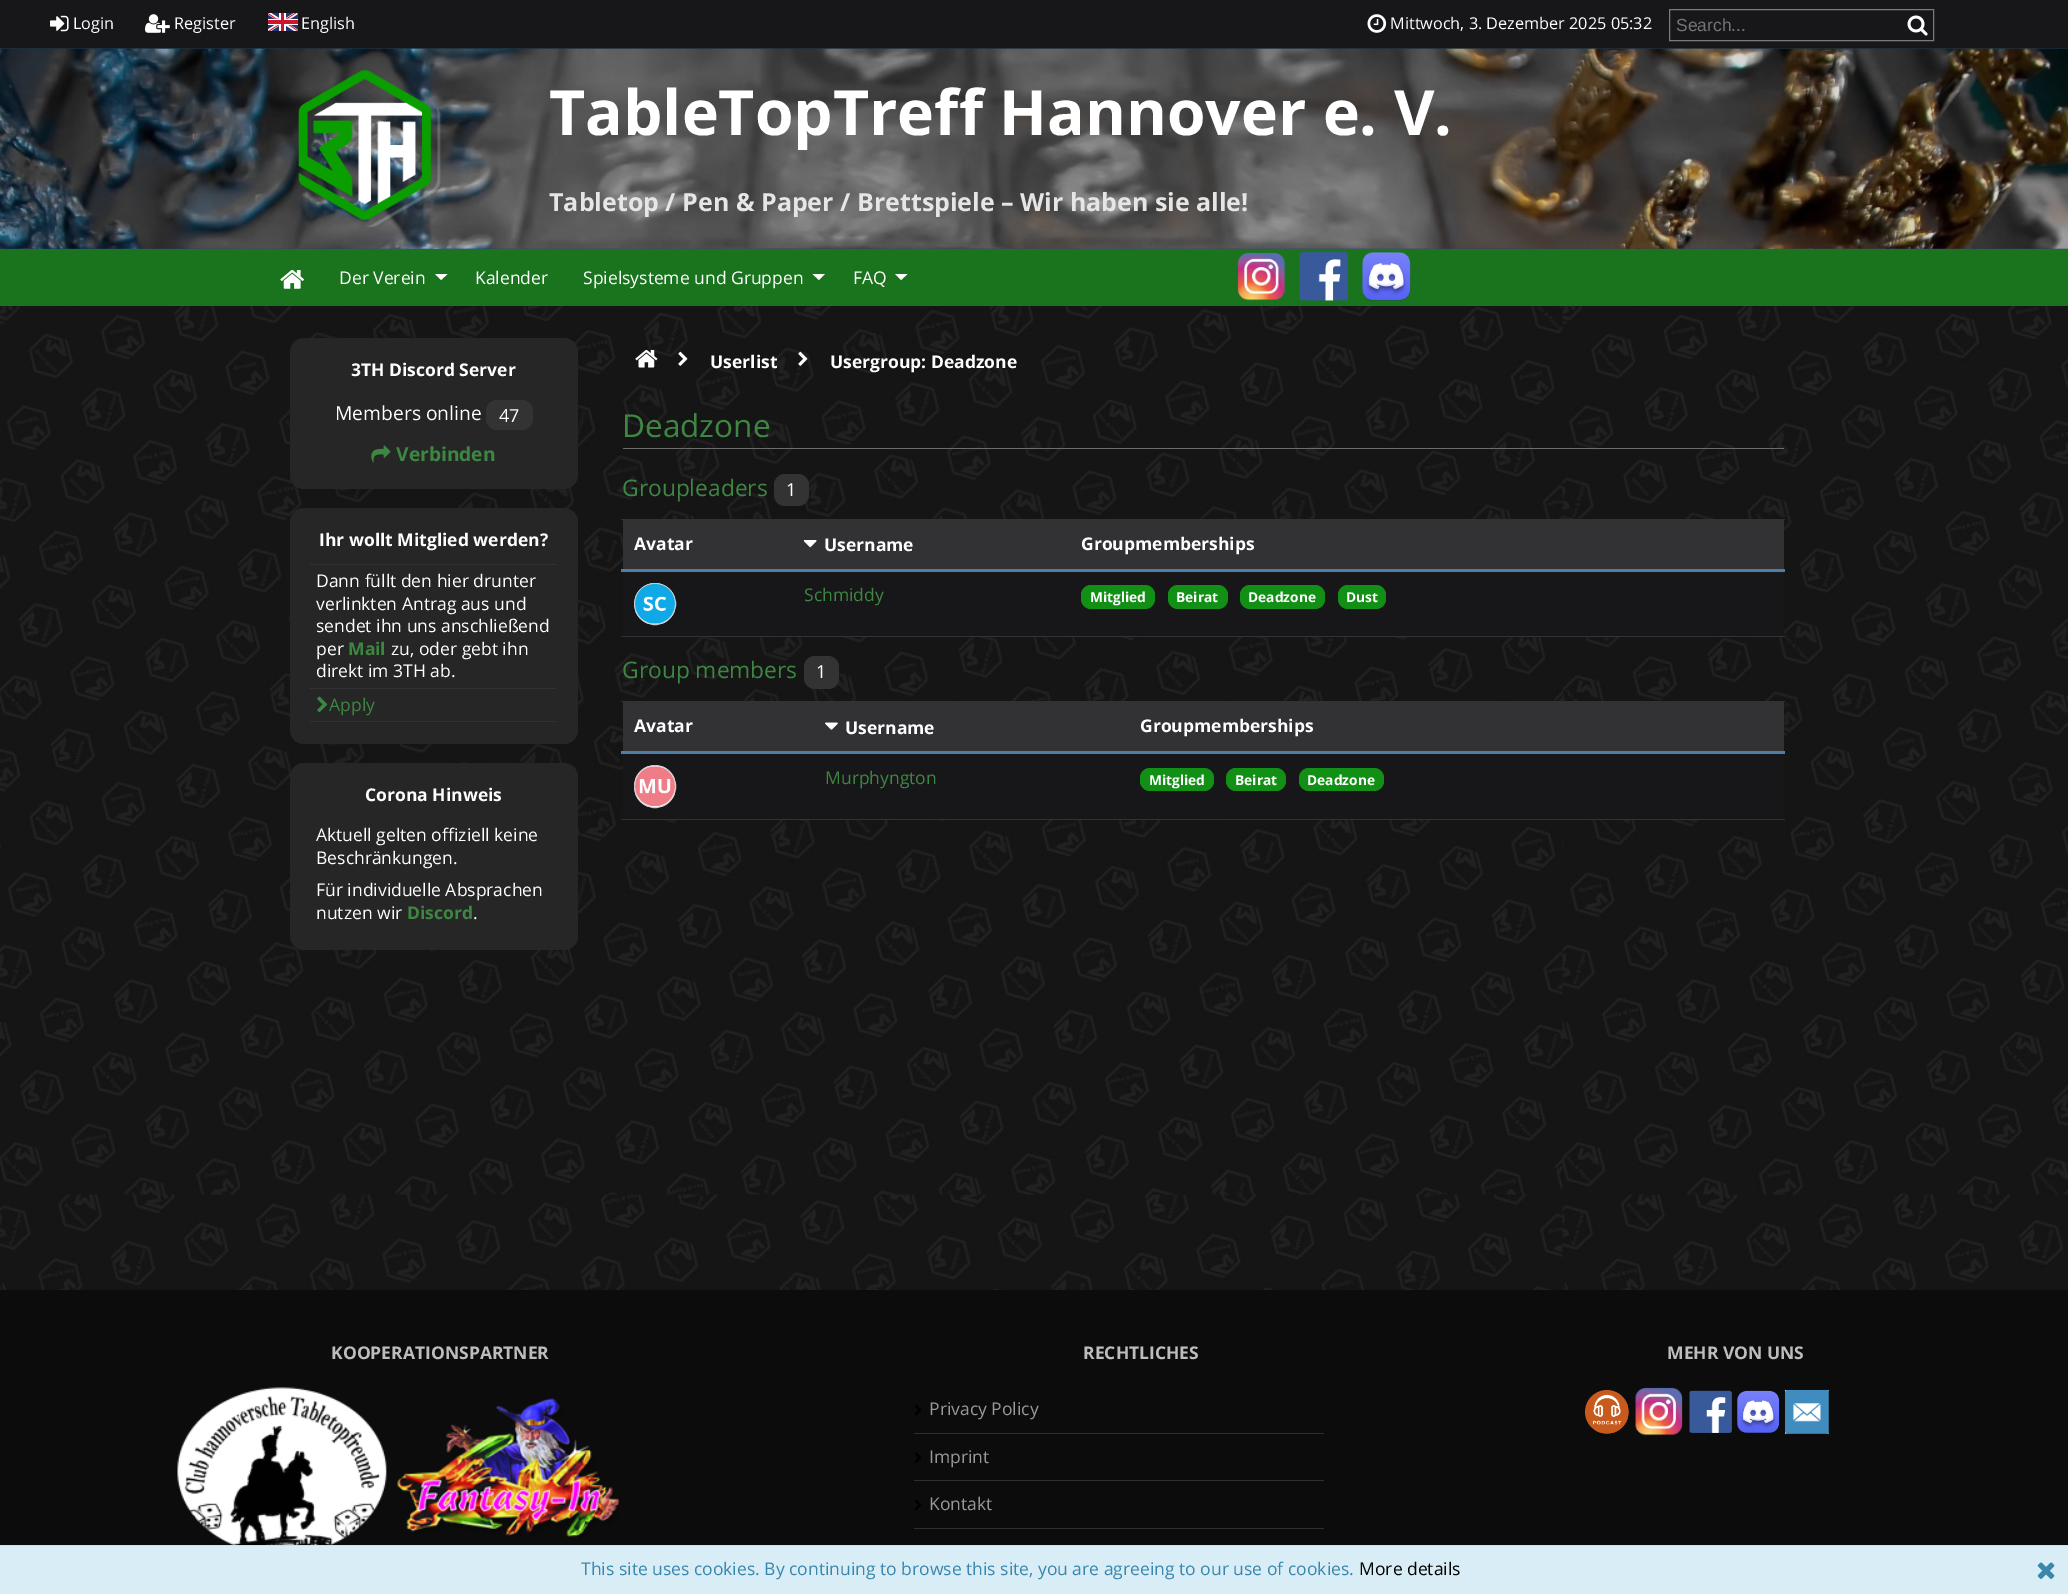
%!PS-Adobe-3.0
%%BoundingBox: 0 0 2068 1594
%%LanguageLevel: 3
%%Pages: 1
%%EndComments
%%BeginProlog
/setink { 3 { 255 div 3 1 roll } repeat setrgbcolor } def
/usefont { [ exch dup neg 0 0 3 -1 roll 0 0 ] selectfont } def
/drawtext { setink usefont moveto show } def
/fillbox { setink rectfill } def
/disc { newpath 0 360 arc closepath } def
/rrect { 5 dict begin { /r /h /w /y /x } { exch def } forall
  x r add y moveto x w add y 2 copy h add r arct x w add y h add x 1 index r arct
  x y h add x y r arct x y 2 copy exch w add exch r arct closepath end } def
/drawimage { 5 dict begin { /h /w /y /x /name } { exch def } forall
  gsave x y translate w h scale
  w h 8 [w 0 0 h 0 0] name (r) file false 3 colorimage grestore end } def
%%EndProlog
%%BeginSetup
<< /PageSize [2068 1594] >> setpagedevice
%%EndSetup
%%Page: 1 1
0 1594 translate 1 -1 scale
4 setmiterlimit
0 0 2068 1594 255 255 255 fillbox
(assets/img1.rgb) 0 248 2068 1042 drawimage
0 0 2068 49 23 23 25 fillbox
(assets/img2.rgb) 50 15 19 17 drawimage
(Login) 73 29 /OpenSans-Regular 16.25 255 255 255 drawtext
(assets/img3.rgb) 145 14 25 19 drawimage
(Register) 174 29 /OpenSans-Regular 16.25 255 255 255 drawtext
(assets/img4.rgb) 268 13 30 18 drawimage
(English) 301 29 /OpenSans-Regular 16.25 255 255 255 drawtext
(assets/img5.rgb) 1367 14 20 19 drawimage
(Mittwoch, 3. Dezember 2025 05:32) 1390 29 /OpenSans-Regular 16.25 255 255 255 drawtext
121 121 131 setink
1669.5 9.5 264 31 rectstroke
(Search...) 1676 31 /LiberationSans-Regular 17.5 117 117 117 drawtext
(assets/img6.rgb) 1907 15 21 21 drawimage
(assets/img7.rgb) 0 48 2068 201 drawimage
(assets/img8.rgb) 298 69 143 158 drawimage
(TableTopTreff Hannover e. V.) 549 135 /OpenSans-Bold 62.5 255 255 255 drawtext
(Tabletop / Pen & Paper / Brettspiele – Wir haben sie alle!) 549 211 /OpenSans-Bold 25 230 230 230 drawtext
0 249 2068 57 26 116 29 fillbox
(assets/img9.rgb) 280 270 24 19 drawimage
(Der Verein) 339 284 /OpenSans-Regular 17.5 255 255 255 drawtext
435 274 moveto 447.5 274 lineto 441 280 lineto closepath fill
(Kalender) 475 284 /OpenSans-Regular 17.5 255 255 255 drawtext
(Spielsysteme und Gruppen) 583 284 /OpenSans-Regular 17.5 255 255 255 drawtext
812.5 274 moveto 825 274 lineto 819 280 lineto closepath fill
(FAQ) 853 284 /OpenSans-Regular 17.5 255 255 255 drawtext
895 274 moveto 907.5 274 lineto 901 280 lineto closepath fill
(assets/img10.rgb) 1237 252 49 49 drawimage
(assets/img11.rgb) 1299 252 49 49 drawimage
(assets/img12.rgb) 1362 252 49 49 drawimage
38 38 38 setink
290 338 288 151 14 rrect fill
(3TH Discord Server) 351 376 /OpenSans-Bold 17.5 255 255 255 drawtext
(Members online) 335 420 /OpenSans-Regular 19.25 255 255 255 drawtext
51 51 51 setink
486 400 47 30 11 rrect fill
(47) 499 422 /OpenSans-Regular 18 255 255 255 drawtext
(assets/img13.rgb) 371 445 20 18 drawimage
(Verbinden) 396 461 /OpenSans-Bold 19.25 61 135 66 drawtext
38 38 38 setink
290 508 288 236 14 rrect fill
(Ihr wollt Mitglied werden?) 319 546 /OpenSans-Bold 17.5 255 255 255 drawtext
310 564 246 1 50 50 53 fillbox
(Dann füllt den hier drunter) 316 587 /OpenSans-Regular 17.5 255 255 255 drawtext
(verlinkten Antrag aus und) 316 610 /OpenSans-Regular 17.5 255 255 255 drawtext
(sendet ihn uns anschließend) 316 632 /OpenSans-Regular 17.5 255 255 255 drawtext
(per) 316 655 /OpenSans-Regular 17.5 255 255 255 drawtext
(Mail) 348 655 /OpenSans-Bold 17.5 61 135 66 drawtext
(zu, oder gebt ihn) 391 655 /OpenSans-Regular 17.5 255 255 255 drawtext
(direkt im 3TH ab.) 316 677 /OpenSans-Regular 17.5 255 255 255 drawtext
310 688 246 1 50 50 53 fillbox
310 721 246 1 50 50 53 fillbox
(assets/img14.rgb) 317 696 11 17 drawimage
(Apply) 329 711 /OpenSans-Regular 17.5 61 135 66 drawtext
38 38 38 setink
290 763 288 187 14 rrect fill
(Corona Hinweis) 365 801 /OpenSans-Bold 17.5 255 255 255 drawtext
(Aktuell gelten offiziell keine) 316 841 /OpenSans-Regular 17.5 255 255 255 drawtext
(Beschränkungen.) 316 864 /OpenSans-Regular 17.5 255 255 255 drawtext
(Für individuelle Absprachen) 316 896 /OpenSans-Regular 17.5 255 255 255 drawtext
(nutzen wir) 316 919 /OpenSans-Regular 17.5 255 255 255 drawtext
(Discord) 407 919 /OpenSans-Bold 17.5 61 135 66 drawtext
(.) 473 919 /OpenSans-Regular 17.5 255 255 255 drawtext
(assets/img15.rgb) 635 350 23 18 drawimage
(assets/img16.rgb) 678 351 10 15 drawimage
(Userlist) 710 368 /OpenSans-Bold 17.5 255 255 255 drawtext
(assets/img17.rgb) 798 351 10 15 drawimage
(Usergroup: Deadzone) 830 368 /OpenSans-Bold 17.5 255 255 255 drawtext
623 448 1161 1 107 107 113 fillbox
(Deadzone) 622 437 /OpenSans-Regular 31.5 61 135 66 drawtext
(Groupleaders) 622 496 /OpenSans-Regular 22.75 61 135 66 drawtext
51 51 51 setink
774 474 35 32 11 rrect fill
(1) 786 496 /OpenSans-Regular 18 255 255 255 drawtext
623 519 1161 50 50 50 53 fillbox
621 519 2 1 50 50 53 fillbox
(Avatar) 634 550 /OpenSans-Bold 17.5 255 255 255 drawtext
(assets/img18.rgb) 803 540 14 8 drawimage
(Username) 824 551 /OpenSans-Bold 17.5 255 255 255 drawtext
1784 519 1 1 50 50 53 fillbox
621 569 1164 3 78 127 168 fillbox
(Groupmemberships) 1081 550 /OpenSans-Bold 17.5 255 255 255 drawtext
623 572 1161 64 23 23 25 fillbox
255 255 255 setink
655 604 20.5 disc gsave fill grestore
204 204 204 setink
stroke
(assets/img19.rgb) 635 583 40 41 drawimage
(Schmiddy) 804 601 /OpenSans-Regular 17.5 61 135 66 drawtext
621 636 1164 1 50 50 53 fillbox
18 144 22 setink
1081 585 74 24 10 rrect fill
(Mitglied) 1090 602 /OpenSans-Bold 13.75 255 255 255 drawtext
18 144 22 setink
1168 585 60 24 10 rrect fill
(Beirat) 1176 602 /OpenSans-Bold 13.75 255 255 255 drawtext
18 144 22 setink
1240 585 85 24 10 rrect fill
(Deadzone) 1248 602 /OpenSans-Bold 13.75 255 255 255 drawtext
18 144 22 setink
1338 585 48 24 10 rrect fill
(Dust) 1346 602 /OpenSans-Bold 13.75 255 255 255 drawtext
(Group members) 622 678 /OpenSans-Regular 22.75 61 135 66 drawtext
51 51 51 setink
804 656 35 33 11 rrect fill
(1) 816 678 /OpenSans-Regular 18 255 255 255 drawtext
623 701 1161 50 50 50 53 fillbox
621 701 2 1 50 50 53 fillbox
(Avatar) 634 732 /OpenSans-Bold 17.5 255 255 255 drawtext
(assets/img20.rgb) 825 722 13 8 drawimage
(Username) 845 734 /OpenSans-Bold 17.5 255 255 255 drawtext
1784 701 1 1 50 50 53 fillbox
621 751 1164 3 78 127 168 fillbox
(Groupmemberships) 1140 732 /OpenSans-Bold 17.5 255 255 255 drawtext
623 754 1161 65 23 23 25 fillbox
255 255 255 setink
634.5 765.5 41 42 20.5 rrect gsave fill grestore
204 204 204 setink
stroke
(assets/img21.rgb) 635 766 40 41 drawimage
(Murphyngton) 825 784 /OpenSans-Regular 17.5 61 135 66 drawtext
621 819 1164 1 50 50 53 fillbox
18 144 22 setink
1140 768 74 23 10 rrect fill
(Mitglied) 1149 785 /OpenSans-Bold 13.75 255 255 255 drawtext
18 144 22 setink
1226 768 60 23 10 rrect fill
(Beirat) 1235 785 /OpenSans-Bold 13.75 255 255 255 drawtext
18 144 22 setink
1299 768 85 23 10 rrect fill
(Deadzone) 1307 785 /OpenSans-Bold 13.75 255 255 255 drawtext
0 1546 2068 48 217 237 247 fillbox
0 1545 2068 1 206 225 235 fillbox
(This site uses cookies. By continuing to browse this site, you are agreeing to our use of cookies.) 581 1575 /OpenSans-Regular 17.5 58 135 173 drawtext
(More details) 1359 1575 /OpenSans-Regular 17.5 0 0 0 drawtext
(assets/img22.rgb) 2037 1562 18 17 drawimage
0 1290 2068 255 12 12 12 fillbox
(KOOPERATIONSPARTNER) 331 1359 /OpenSans-Bold 17.5 189 189 189 drawtext
(assets/img23.rgb) 177 1387 210 158 drawimage
(assets/img24.rgb) 397 1398 222 139 drawimage
(RECHTLICHES) 1083 1359 /OpenSans-Bold 17.5 189 189 189 drawtext
914 1433 410 1 47 47 47 fillbox
(assets/img25.rgb) 914 1405 8 11 drawimage
(Privacy Policy) 929 1415 /OpenSans-Regular 17.5 153 153 153 drawtext
914 1480 410 1 47 47 47 fillbox
(assets/img26.rgb) 914 1452 8 11 drawimage
(Imprint) 929 1463 /OpenSans-Regular 17.5 153 153 153 drawtext
914 1528 410 1 47 47 47 fillbox
(assets/img25.rgb) 914 1500 8 11 drawimage
(Kontakt) 929 1510 /OpenSans-Regular 17.5 153 153 153 drawtext
(MEHR VON UNS) 1667 1359 /OpenSans-Bold 17.5 189 189 189 drawtext
(assets/img27.rgb) 1585 1390 44 44 drawimage
(assets/img28.rgb) 1635 1387 48 49 drawimage
(assets/img29.rgb) 1689 1390 43 43 drawimage
(assets/img30.rgb) 1737 1390 43 43 drawimage
(assets/img31.rgb) 1785 1390 44 44 drawimage
showpage
%%EOF
